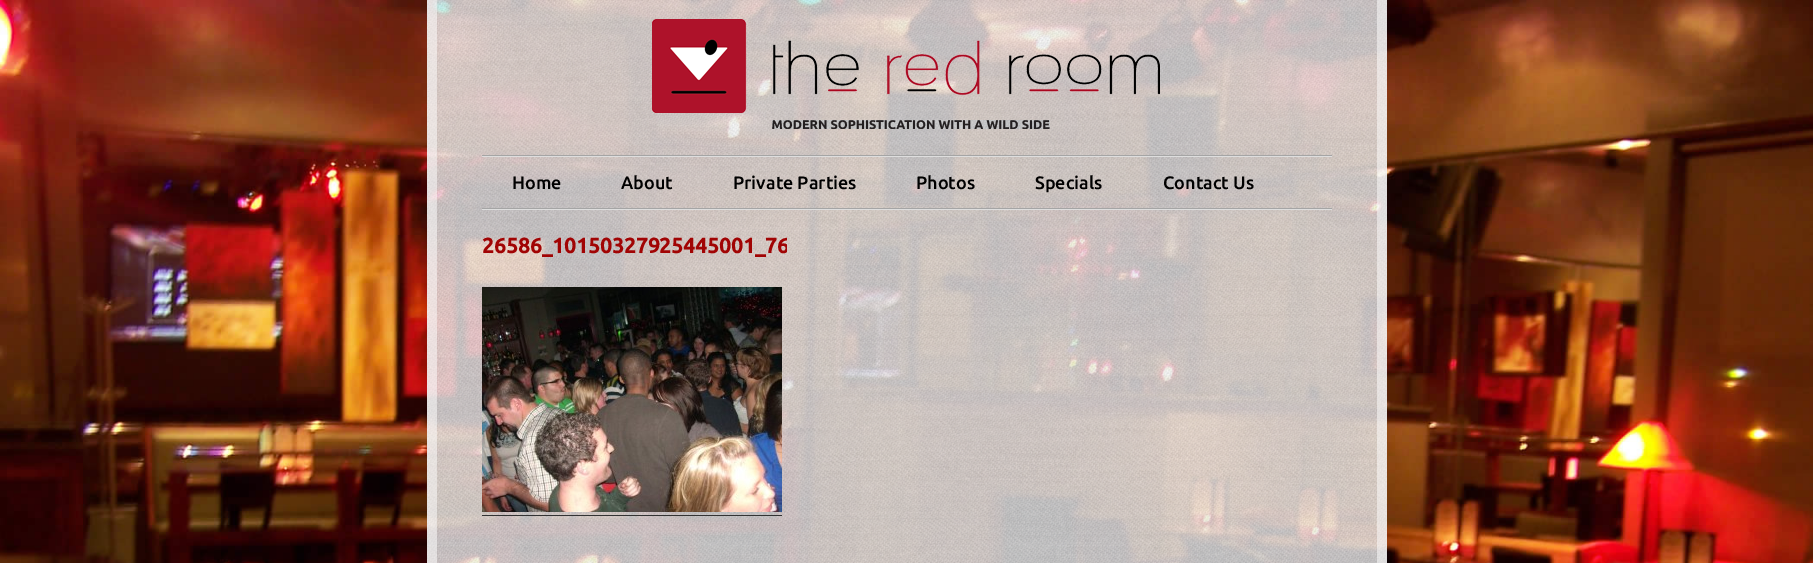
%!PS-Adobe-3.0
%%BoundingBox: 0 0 1813 563
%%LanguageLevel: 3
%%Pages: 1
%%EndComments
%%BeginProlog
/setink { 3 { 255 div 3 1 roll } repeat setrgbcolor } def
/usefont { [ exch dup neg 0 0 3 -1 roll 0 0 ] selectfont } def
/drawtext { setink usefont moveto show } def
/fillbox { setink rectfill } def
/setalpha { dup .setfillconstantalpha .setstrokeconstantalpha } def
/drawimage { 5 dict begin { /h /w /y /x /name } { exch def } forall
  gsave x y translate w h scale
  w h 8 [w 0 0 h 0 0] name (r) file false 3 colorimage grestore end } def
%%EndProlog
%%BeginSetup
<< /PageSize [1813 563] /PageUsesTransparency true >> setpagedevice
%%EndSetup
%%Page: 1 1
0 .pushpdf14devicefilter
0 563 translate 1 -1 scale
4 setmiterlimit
0 0 1813 563 255 255 255 fillbox
(assets/img1.rgb) 0 0 1813 563 drawimage
(assets/img2.rgb) 427 0 960 563 drawimage
0.5 setalpha
1377 0 10 563 255 255 255 fillbox
427 0 10 563 255 255 255 fillbox
1 setalpha
(assets/img3.rgb) 652 19 508 110 drawimage
(assets/img4.rgb) 482 155 850 2 drawimage
(Home) 512 189 /Ubuntu-Medium 18 0 0 0 drawtext
(About) 621 189 /Ubuntu-Medium 18 0 0 0 drawtext
(Private Parties) 733 189 /Ubuntu-Medium 18 0 0 0 drawtext
(Photos) 916 189 /Ubuntu-Medium 18 0 0 0 drawtext
(Specials) 1035 189 /Ubuntu-Medium 18 0 0 0 drawtext
(Contact Us) 1163 189 /Ubuntu-Medium 18 0 0 0 drawtext
(assets/img4.rgb) 482 208 850 2 drawimage
gsave
482 210 305 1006 rectclip
(26586_10150327925445001_76) 482 253 /Ubuntu-Bold 21 161 4 4 drawtext
grestore
(assets/img5.rgb) 482 287 300 225 drawimage
482 515 300 1 51 51 51 fillbox
.poppdf14devicefilter showpage
%%EOF
